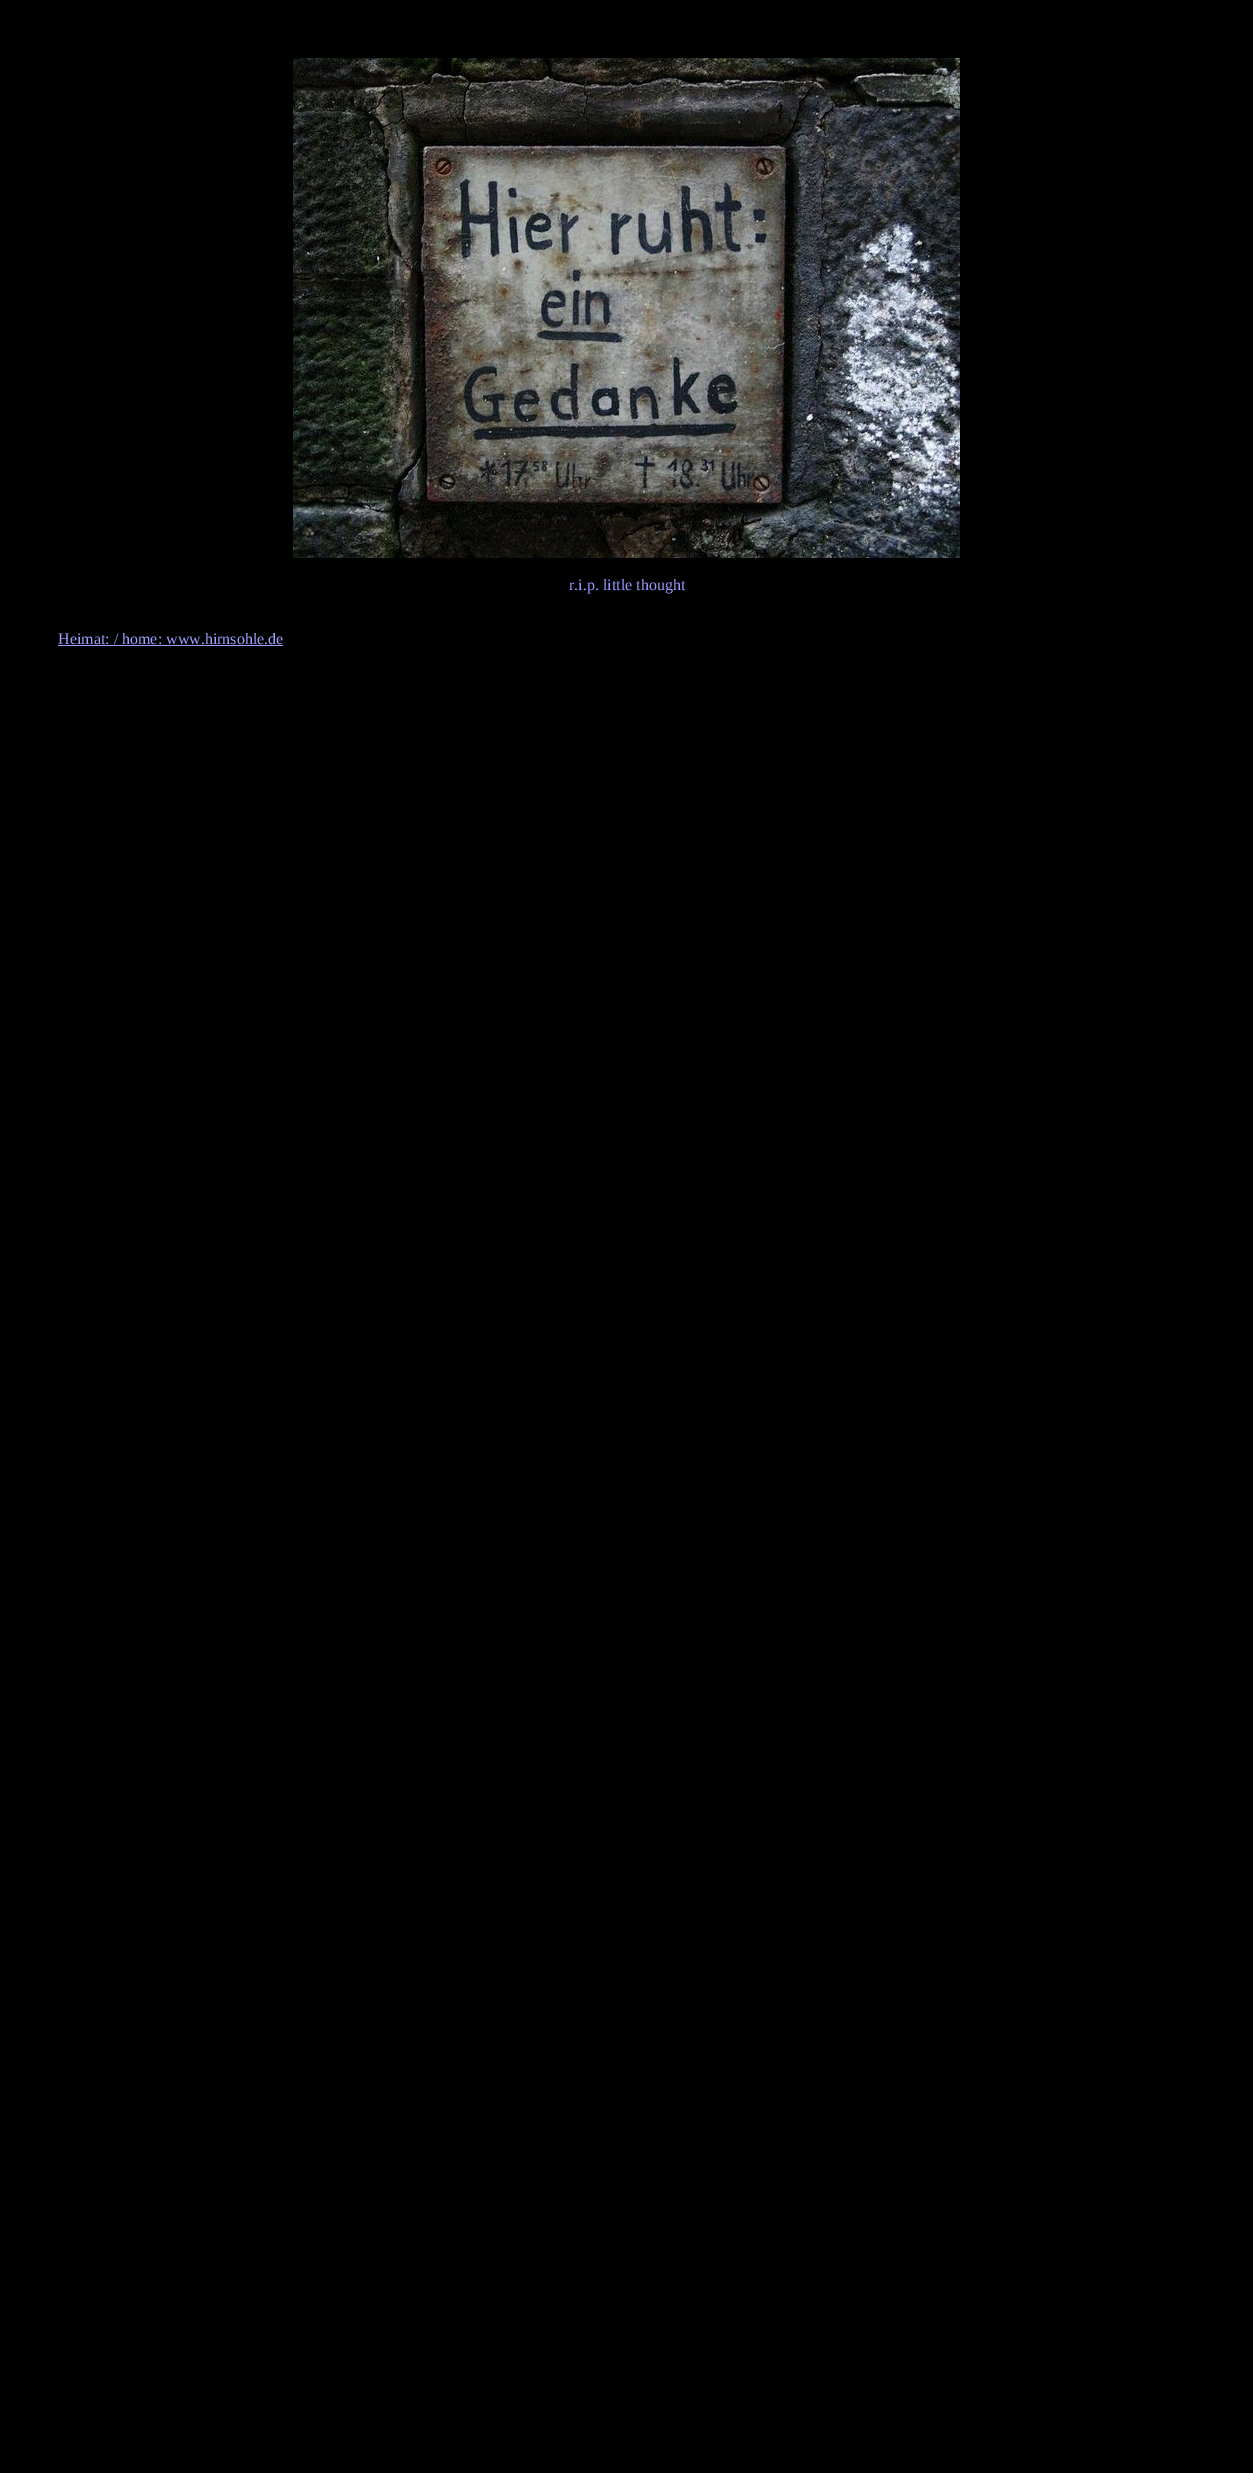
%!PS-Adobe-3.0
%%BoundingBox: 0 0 1253 2473
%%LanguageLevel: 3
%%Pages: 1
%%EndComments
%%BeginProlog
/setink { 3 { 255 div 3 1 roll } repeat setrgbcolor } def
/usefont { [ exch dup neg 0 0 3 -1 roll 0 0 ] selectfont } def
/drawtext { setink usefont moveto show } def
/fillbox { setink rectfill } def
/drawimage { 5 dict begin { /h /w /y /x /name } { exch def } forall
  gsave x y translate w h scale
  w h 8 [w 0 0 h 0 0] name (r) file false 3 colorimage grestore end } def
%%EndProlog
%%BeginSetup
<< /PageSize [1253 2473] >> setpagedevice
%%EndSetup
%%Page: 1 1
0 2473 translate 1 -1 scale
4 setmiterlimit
0 0 1253 2473 0 0 0 fillbox
(assets/img1.rgb) 293 58 667 500 drawimage
(r.i.p. little thought) 569 590 /LiberationSerif-Regular 16 153 153 255 drawtext
(Heimat: / home: www.hirnsohle.de) 58 644 /LiberationSerif-Regular 16 159 159 255 drawtext
58 645 225 1 159 159 255 fillbox
showpage
%%EOF
